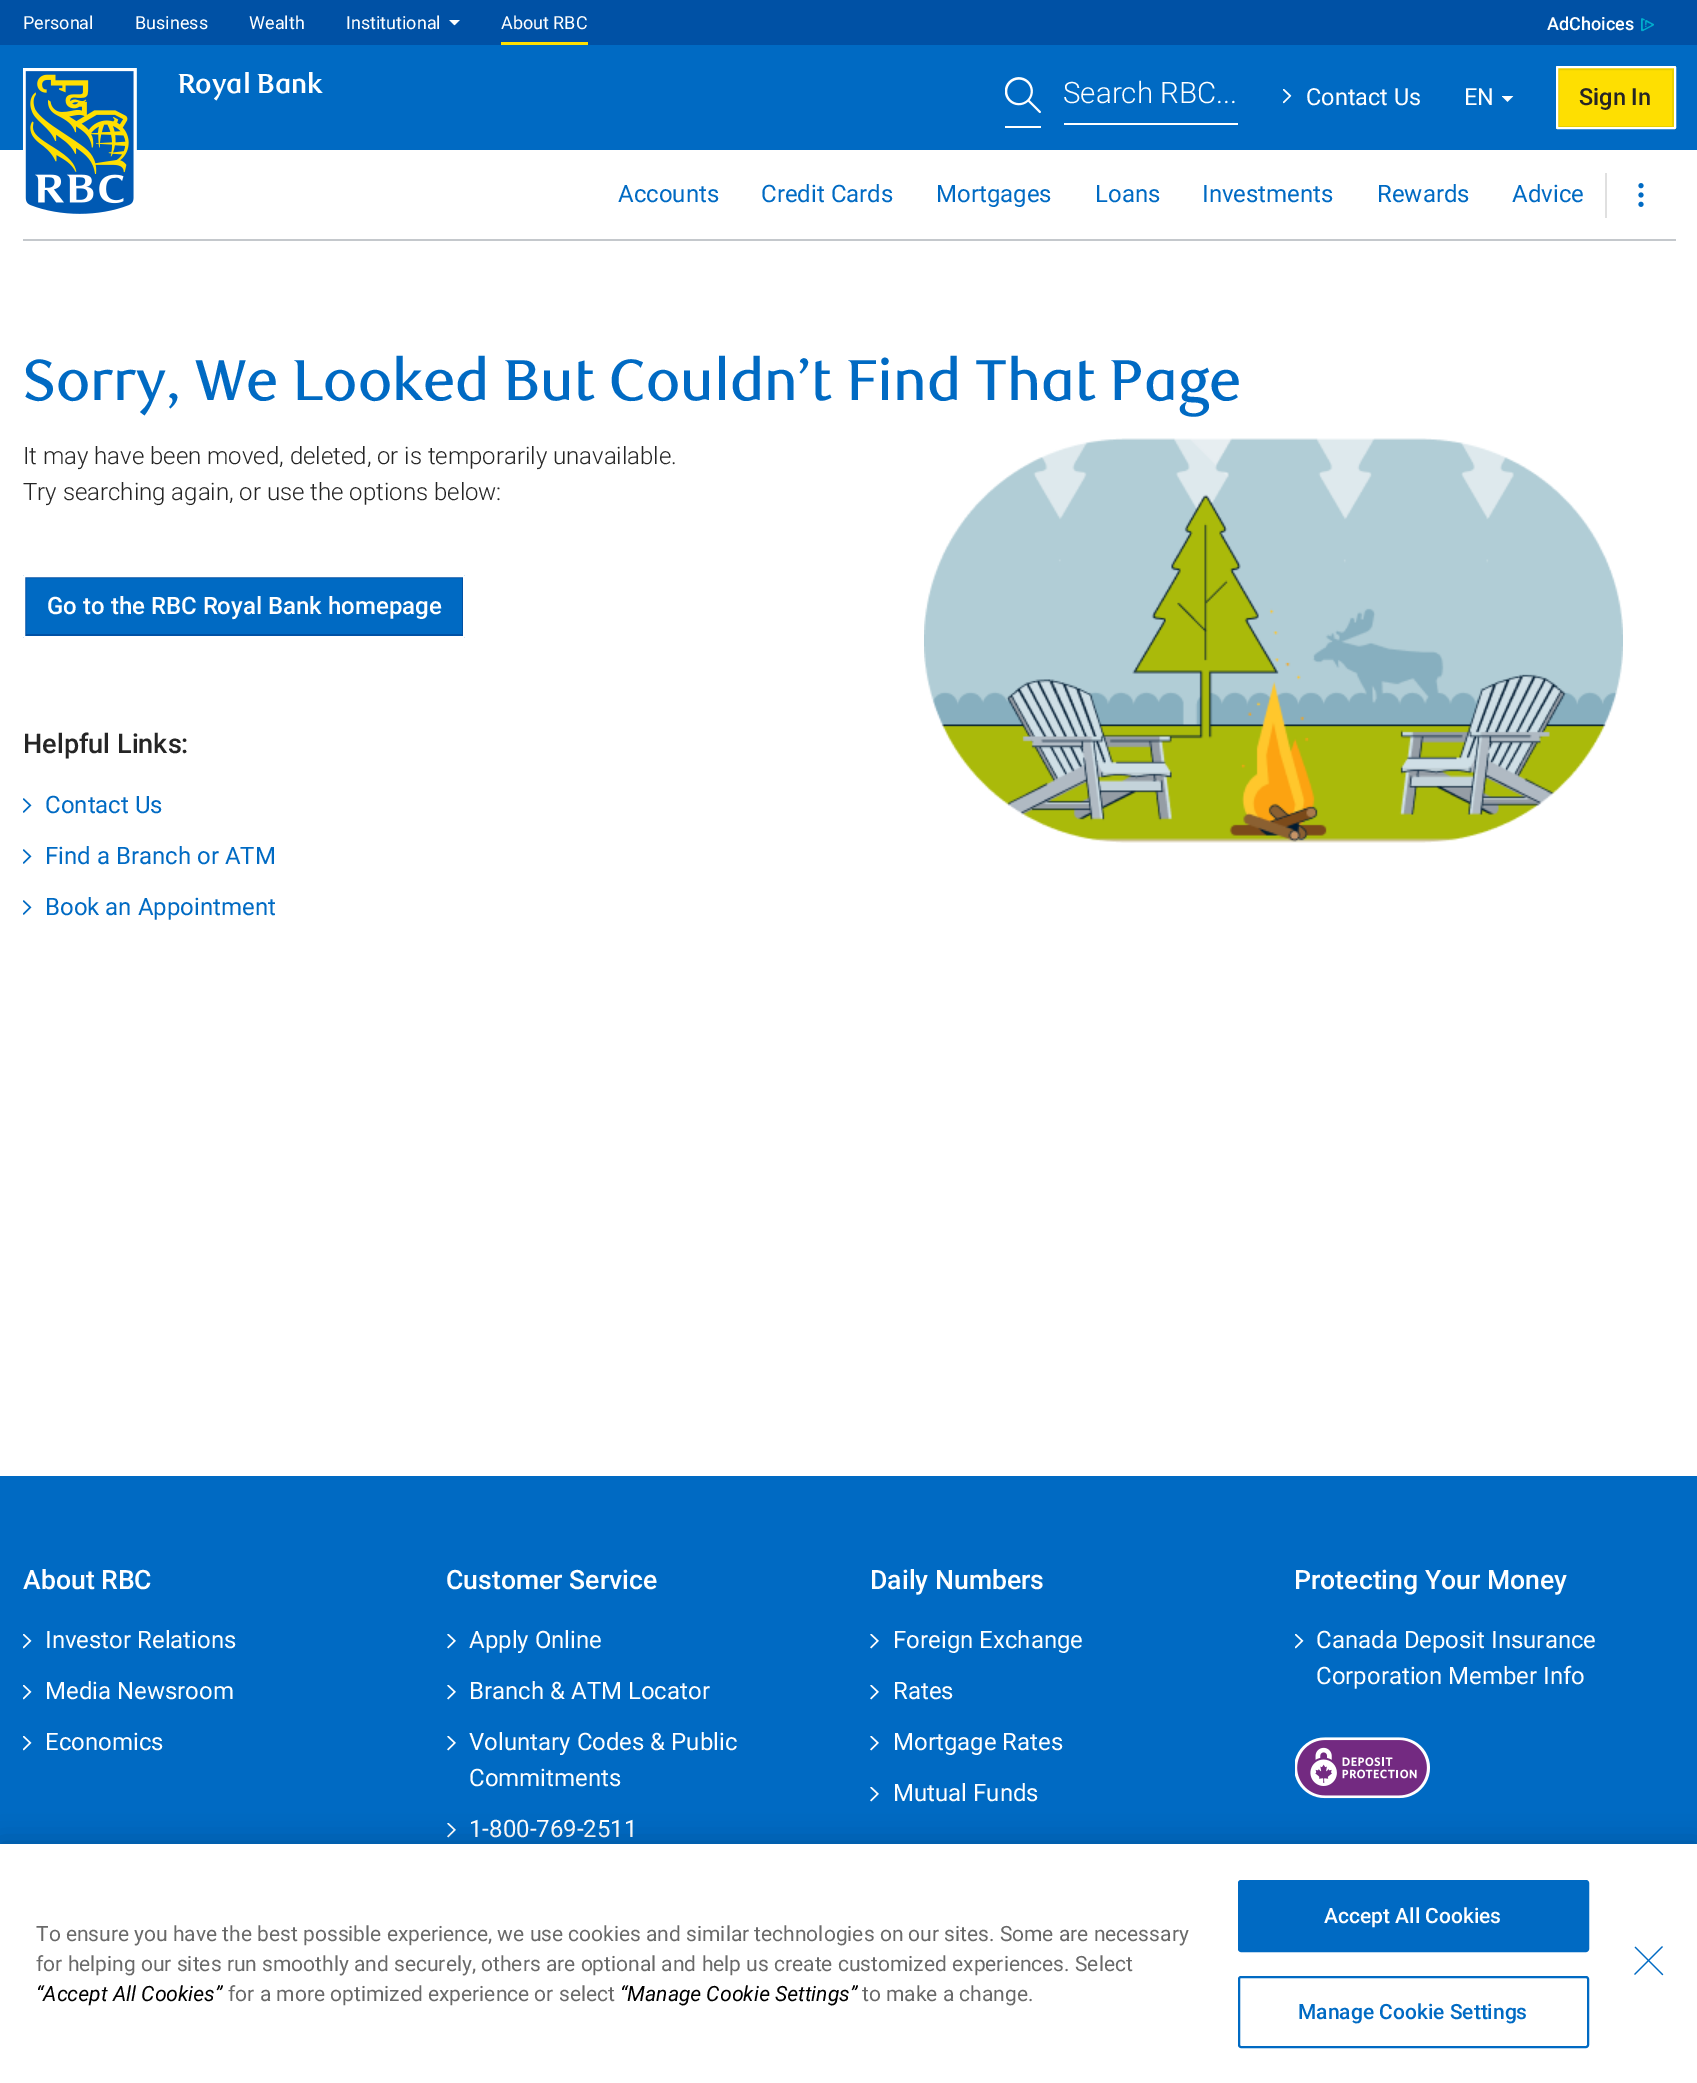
%!PS-Adobe-3.0
%%BoundingBox: 0 0 1697 2083
%%LanguageLevel: 3
%%Pages: 1
%%EndComments
%%BeginProlog
/setink { 3 { 255 div 3 1 roll } repeat setrgbcolor } def
/usefont { [ exch dup neg 0 0 3 -1 roll 0 0 ] selectfont } def
/drawtext { setink usefont moveto show } def
/fillbox { setink rectfill } def
/setalpha { dup .setfillconstantalpha .setstrokeconstantalpha } def
/rrect { 5 dict begin { /r /h /w /y /x } { exch def } forall
  x r add y moveto x w add y 2 copy h add r arct x w add y h add x 1 index r arct
  x y h add x y r arct x y 2 copy exch w add exch r arct closepath end } def
/softshadow { 12 dict begin { /a /b /q /h /w /y /x } { exch def } forall gsave /was 0 def
  9 -2 -9 { dup b mul 4 div /e exch def 1 sub .425 mul 2.718 exch exp 1 add a .99 .min exch div /now exch def
    1 1 now sub 1 was sub div sub setalpha /was now def
    w h .min e 2 mul add 0 gt { x e sub y e sub w e 2 mul add h e 2 mul add
      q e add b .6 mul add w h .min 2 div e add .min 0 .max rrect fill } if } for grestore end } def
/drawimage { 5 dict begin { /h /w /y /x /name } { exch def } forall
  gsave x y translate w h scale
  w h 8 [w 0 0 h 0 0] name (r) file false 3 colorimage grestore end } def
%%EndProlog
%%BeginSetup
<< /PageSize [1697 2083] /PageUsesTransparency true >> setpagedevice
%%EndSetup
%%Page: 1 1
0 .pushpdf14devicefilter
0 2083 translate 1 -1 scale
4 setmiterlimit
0 0 1697 2083 255 255 255 fillbox
0 45 1697 105 0 106 195 fillbox
0 0 1697 45 0 81 165 fillbox
(Personal) 23 29 /Roboto-Regular 18 255 255 255 drawtext
(Business) 135 29 /Roboto-Regular 18 255 255 255 drawtext
(Wealth) 249 29 /Roboto-Regular 18 255 255 255 drawtext
(Institutional) 346 29 /Roboto-Regular 18 255 255 255 drawtext
(assets/img1.rgb) 449 20 11 6 drawimage
(About RBC) 501 29 /Roboto-Regular 18 255 255 255 drawtext
501 42 87 3 254 223 1 fillbox
(AdChoices) 1547 30 /Roboto-Medium 18 255 255 255 drawtext
(assets/img2.rgb) 1641 18 13 14 drawimage
(assets/img3.rgb) 23 68 114 146 drawimage
(Royal Bank) 178 93 /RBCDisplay-Bold 27.5 255 255 255 drawtext
(assets/img4.rgb) 1005 77 36 37 drawimage
(Search RBC...) 1063 103 /Roboto-Light 29.5 255 255 255 drawtext
1005 126 36 2 255 255 255 fillbox
1064 123 174 2 255 255 255 fillbox
(assets/img5.rgb) 1283 89 9 15 drawimage
(Contact Us) 1306 105 /Roboto-Regular 23.5 255 255 255 drawtext
(EN) 1464 105 /Roboto-Regular 23.5 255 255 255 drawtext
(assets/img6.rgb) 1502 96 12 6 drawimage
254 223 1 setink
1556 66 120 63 1.5 rrect fill
232 207 0 setink
2 setlinewidth
1558 69 115 58 rectstroke
255 255 255 setink
1557 67 118 61 0.5 rrect stroke
(Sign In) 1579 105 /Roboto-Medium 23.5 37 37 37 drawtext
23 239 1653 2 196 200 204 fillbox
(Accounts) 618 202 /Roboto-Regular 24 0 106 195 drawtext
(Credit Cards) 761 202 /Roboto-Regular 24 0 106 195 drawtext
(Mortgages) 936 202 /Roboto-Regular 24 0 106 195 drawtext
(Loans) 1095 202 /Roboto-Regular 24 0 106 195 drawtext
(Investments) 1202 202 /Roboto-Regular 24 0 106 195 drawtext
(Rewards) 1377 202 /Roboto-Regular 24 0 106 195 drawtext
(Advice) 1512 202 /Roboto-Regular 24 0 106 195 drawtext
1605 173 2 45 224 224 224 fillbox
(assets/img7.rgb) 1638 183 6 24 drawimage
(Sorry, We Looked But Couldn’t Find That Page) 23 400 /RBCDisplay-Medium 57.8 0 106 195 drawtext
(It may have been moved, deleted, or is temporarily unavailable.) 23 464 /Roboto-Light 24 37 37 37 drawtext
(Try searching again, or use the options below:) 23 500 /Roboto-Light 24 37 37 37 drawtext
0 106 195 setink
23 575 442 63 1.5 rrect fill
0 81 165 setink
25 577 438 58 rectstroke
255 255 255 setink
24 576 440 61 0.5 rrect stroke
(Go to the RBC Royal Bank homepage) 47 614 /Roboto-Medium 24 255 255 255 drawtext
(Helpful Links:) 23 753 /Roboto-Medium 27 37 37 37 drawtext
(assets/img8.rgb) 23 798 9 15 drawimage
(Contact Us) 45 813 /Roboto-Regular 24 0 106 195 drawtext
(assets/img8.rgb) 23 849 9 15 drawimage
(Find a Branch or ATM) 45 864 /Roboto-Regular 24 0 106 195 drawtext
(assets/img8.rgb) 23 900 9 15 drawimage
(Book an Appointment) 45 915 /Roboto-Regular 24 0 106 195 drawtext
(assets/img9.rgb) 924 438 699 405 drawimage
0 1476 1697 368 0 106 195 fillbox
(About RBC) 23 1589 /Roboto-Medium 26.6 255 255 255 drawtext
(assets/img10.rgb) 23 1634 9 15 drawimage
(Investor Relations) 45 1648 /Roboto-Regular 24 255 255 255 drawtext
(assets/img10.rgb) 23 1685 9 15 drawimage
(Media Newsroom) 45 1699 /Roboto-Regular 24 255 255 255 drawtext
(assets/img10.rgb) 23 1736 9 15 drawimage
(Economics) 45 1750 /Roboto-Regular 24 255 255 255 drawtext
(Customer Service) 446 1589 /Roboto-Medium 26.6 255 255 255 drawtext
(assets/img11.rgb) 447 1634 9 15 drawimage
(Apply Online) 469 1648 /Roboto-Regular 24 255 255 255 drawtext
(assets/img11.rgb) 447 1685 9 15 drawimage
(Branch & ATM Locator) 469 1699 /Roboto-Regular 24 255 255 255 drawtext
(assets/img11.rgb) 447 1736 9 15 drawimage
(Voluntary Codes & Public) 469 1750 /Roboto-Regular 24 255 255 255 drawtext
(Commitments) 469 1786 /Roboto-Regular 24 255 255 255 drawtext
(assets/img11.rgb) 447 1823 9 15 drawimage
(1-800-769-2511) 469 1837 /Roboto-Regular 24 255 255 255 drawtext
(Daily Numbers) 870 1589 /Roboto-Medium 26.6 255 255 255 drawtext
(assets/img11.rgb) 870 1634 9 15 drawimage
(Foreign Exchange) 893 1648 /Roboto-Regular 24 255 255 255 drawtext
(assets/img11.rgb) 870 1685 9 15 drawimage
(Rates) 893 1699 /Roboto-Regular 24 255 255 255 drawtext
(assets/img11.rgb) 870 1736 9 15 drawimage
(Mortgage Rates) 893 1750 /Roboto-Regular 24 255 255 255 drawtext
(assets/img11.rgb) 870 1787 9 15 drawimage
(Mutual Funds) 893 1801 /Roboto-Regular 24 255 255 255 drawtext
(Protecting Your Money) 1294 1589 /Roboto-Medium 26.6 255 255 255 drawtext
(assets/img10.rgb) 1295 1634 9 15 drawimage
(Canada Deposit Insurance) 1316 1648 /Roboto-Regular 24 255 255 255 drawtext
(Corporation Member Info) 1316 1684 /Roboto-Regular 24 255 255 255 drawtext
(assets/img12.rgb) 1295 1737 135 62 drawimage
0 0 0 setink
0 1844 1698 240 0 13.5 0.2 softshadow
0 1844 1697 239 255 255 255 fillbox
(To ensure you have the best possible experience, we use cookies and similar technologies on our sites. Some are necessary) 36 1941 /Roboto-Regular 21 105 105 105 drawtext
(for helping our sites run smoothly and securely, others are optional and help us create customized experiences. Select) 36 1971 /Roboto-Regular 21 105 105 105 drawtext
(“Accept All Cookies”) 36 2001 /Roboto-Italic 21 0 0 0 drawtext
(for a more optimized experience or select) 228 2001 /Roboto-Regular 21 105 105 105 drawtext
(“Manage Cookie Settings”) 620 2001 /Roboto-Italic 21 0 0 0 drawtext
(to make a change.) 862 2001 /Roboto-Regular 21 105 105 105 drawtext
0 106 195 setink
1239 1881 349 70 2 rrect gsave fill grestore
stroke
(Accept All Cookies) 1324 1923 /Roboto-Medium 21 255 255 255 drawtext
0 106 195 setink
1239 1977 349 70 2 rrect stroke
(Manage Cookie Settings) 1298 2019 /Roboto-Medium 21 0 106 195 drawtext
(assets/img13.rgb) 1634 1946 30 30 drawimage
.poppdf14devicefilter showpage
%%EOF
